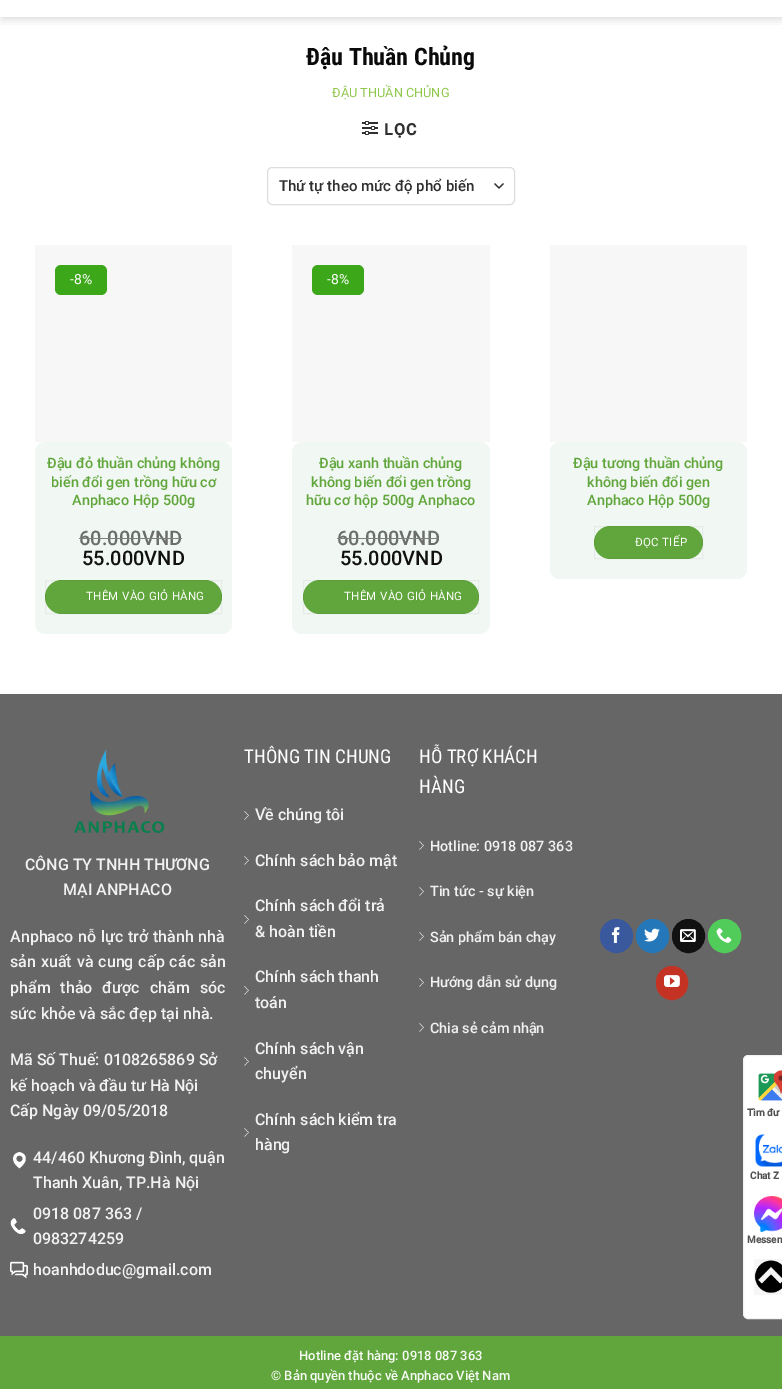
%!PS-Adobe-3.0
%%BoundingBox: 0 0 782 1389
%%LanguageLevel: 3
%%Pages: 1
%%EndComments
%%BeginProlog
/setink { 3 { 255 div 3 1 roll } repeat setrgbcolor } def
/usefont { [ exch dup neg 0 0 3 -1 roll 0 0 ] selectfont } def
/drawtext { setink usefont moveto show } def
/fillbox { setink rectfill } def
/setalpha { dup .setfillconstantalpha .setstrokeconstantalpha } def
/rrect { 5 dict begin { /r /h /w /y /x } { exch def } forall
  x r add y moveto x w add y 2 copy h add r arct x w add y h add x 1 index r arct
  x y h add x y r arct x y 2 copy exch w add exch r arct closepath end } def
/softshadow { 12 dict begin { /a /b /q /h /w /y /x } { exch def } forall gsave /was 0 def
  9 -2 -9 { dup b mul 4 div /e exch def 1 sub .425 mul 2.718 exch exp 1 add a .99 .min exch div /now exch def
    1 1 now sub 1 was sub div sub setalpha /was now def
    w h .min e 2 mul add 0 gt { x e sub y e sub w e 2 mul add h e 2 mul add
      q e add b .6 mul add w h .min 2 div e add .min 0 .max rrect fill } if } for grestore end } def
/drawimage { 5 dict begin { /h /w /y /x /name } { exch def } forall
  gsave x y translate w h scale
  w h 8 [w 0 0 h 0 0] name (r) file false 3 colorimage grestore end } def
%%EndProlog
%%BeginSetup
<< /PageSize [782 1389] /PageUsesTransparency true >> setpagedevice
%%EndSetup
%%Page: 1 1
0 .pushpdf14devicefilter
0 1389 translate 1 -1 scale
4 setmiterlimit
0 0 782 1389 255 255 255 fillbox
gsave
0 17 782 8 rectclip
0 0 0 setink
2 -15 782 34 0 5 0.15 softshadow
grestore
(Đậu Thuần Chủng) 306 65 /RobotoCondensed-Bold 24 10 10 10 drawtext
(ĐẬU THUẦN CHỦNG) 332 97 /Roboto-Regular 12.75 144 199 77 drawtext
(assets/img1.rgb) 362 121 16 14 drawimage
/Roboto-Bold 16 usefont
48 48 48 setink
384 135 moveto 1 0 (LỌC) ashow
51 51 51 setink
1.3 setlinewidth
1 setlinecap
1 setlinejoin
495 184 moveto 499 188 lineto 503 184 lineto stroke
221 221 221 setink
1 setlinewidth
0 setlinecap
0 setlinejoin
267.5 167.5 247 37 4.5 rrect stroke
(Thứ tự theo mức độ phổ biến) 279 191 /Roboto-Medium 15 48 48 48 drawtext
35 245 197 197 247 247 247 fillbox
61 167 26 setink
55 265 52 30 6 rrect fill
(-8%) 70 284 /Roboto-Regular 14 255 255 255 drawtext
241 248 243 setink
35 442 197 192 10 rrect fill
(Đậu đỏ thuần chủng không) 47 468 /Roboto-Medium 14.4 97 166 60 drawtext
(biến đổi gen trồng hữu cơ) 51 487 /Roboto-Medium 14.4 97 166 60 drawtext
(Anphaco Hộp 500g) 72 505 /Roboto-Medium 14.4 97 166 60 drawtext
(60.000) 79 545 /Roboto-Medium 20 107 109 107 drawtext
79 538 63 1 125 128 126 fillbox
(VND) 142 545 /Roboto-Medium 20 107 109 107 drawtext
142 538 40 1 125 128 126 fillbox
(55.000VND) 82 565 /Roboto-Medium 20 17 17 17 drawtext
97 166 60 setink
45 580 177 34 17 rrect fill
0.05 setalpha
0 0 0 setink
45.5 580.5 176 33 rectstroke
/Roboto-Regular 11.5 usefont
1 setalpha
255 255 255 setink
86 600 moveto 0.3 0 (THÊM VÀO GIỎ HÀNG) ashow
292 245 198 197 247 247 247 fillbox
61 167 26 setink
312 265 52 30 6 rrect fill
(-8%) 327 284 /Roboto-Regular 14 255 255 255 drawtext
241 248 243 setink
292 442 198 192 10 rrect fill
(Đậu xanh thuần chủng) 319 468 /Roboto-Medium 14.4 97 166 60 drawtext
(không biến đổi gen trồng) 311 487 /Roboto-Medium 14.4 97 166 60 drawtext
(hữu cơ hộp 500g Anphaco) 306 505 /Roboto-Medium 14.4 97 166 60 drawtext
(60.000VND) 337 545 /Roboto-Medium 20 107 109 107 drawtext
337 538 102 1 125 128 126 fillbox
(55.000VND) 340 565 /Roboto-Medium 20 17 17 17 drawtext
97 166 60 setink
303 580 176 34 17 rrect fill
0.05 setalpha
0 0 0 setink
303.5 580.5 175 33 rectstroke
/Roboto-Regular 11.5 usefont
1 setalpha
255 255 255 setink
344 600 moveto 0.3 0 (THÊM VÀO GIỎ HÀNG) ashow
550 245 197 197 247 247 247 fillbox
241 248 243 setink
550 442 197 137 10 rrect fill
(Đậu tương thuần chủng) 573 468 /Roboto-Medium 14.4 97 166 60 drawtext
(không biến đổi gen) 587 487 /Roboto-Medium 14.4 97 166 60 drawtext
(Anphaco Hộp 500g) 587 505 /Roboto-Medium 14.4 97 166 60 drawtext
594 526 109 33 16.5 rrect fill
0.05 setalpha
0 0 0 setink
594.5 526.5 108 32 rectstroke
/Roboto-Regular 11.5 usefont
1 setalpha
255 255 255 setink
635 546 moveto 0.3 0 (ĐỌC TIẾP) ashow
0 694 782 642 102 102 102 fillbox
(assets/img2.rgb) 74 749 91 84 drawimage
(CÔNG TY TNHH THƯƠNG) 25 870 /Roboto-Medium 16 241 241 241 drawtext
(MẠI ANPHACO) 63 895 /Roboto-Medium 16 241 241 241 drawtext
10 942 moveto 0.75 0 32 (Anphaco nỗ lực trở thành nhà) widthshow
10 967 moveto 1 0 32 (sản xuất và cung cấp các sản) widthshow
10 993 moveto 6 0 32 (phẩm thảo được chăm sóc) widthshow
(sức khỏe và sắc đẹp tại nhà.) 10 1019 /Roboto-Medium 16 241 241 241 drawtext
(Mã Số Thuế: 0108265869 Sở) 10 1065 /Roboto-Medium 16 241 241 241 drawtext
(kế hoạch và đầu tư Hà Nội) 10 1091 /Roboto-Medium 16 241 241 241 drawtext
(Cấp Ngày 09/05/2018) 10 1116 /Roboto-Medium 16 241 241 241 drawtext
(assets/img3.rgb) 13 1152 13 17 drawimage
(44/460 Khương Đình, quận) 33 1163 /Roboto-Medium 16 241 241 241 drawtext
(Thanh Xuân, TP.Hà Nội) 33 1188 /Roboto-Medium 16 241 241 241 drawtext
(assets/img4.rgb) 10 1218 16 16 drawimage
(0918 087 363 /) 33 1219 /Roboto-Medium 16 241 241 241 drawtext
(0983274259) 33 1244 /Roboto-Medium 16 241 241 241 drawtext
(assets/img5.rgb) 10 1261 18 18 drawimage
(hoanhdoduc@gmail.com) 33 1275 /Roboto-Medium 16 241 241 241 drawtext
(THÔNG TIN CHUNG) 244 763 /RobotoCondensed-Regular 19 255 255 255 drawtext
(assets/img6.rgb) 244 811 5 9 drawimage
(Về chúng tôi) 255 820 /Roboto-Medium 16 241 241 241 drawtext
(assets/img6.rgb) 244 856 5 9 drawimage
(Chính sách bảo mật) 255 866 /Roboto-Medium 16 241 241 241 drawtext
(assets/img6.rgb) 244 915 5 9 drawimage
(Chính sách đổi trả) 255 911 /Roboto-Medium 16 241 241 241 drawtext
(& hoàn tiền) 255 937 /Roboto-Medium 16 241 241 241 drawtext
(assets/img7.rgb) 244 986 5 9 drawimage
(Chính sách thanh) 255 982 /Roboto-Medium 16 241 241 241 drawtext
(toán) 255 1008 /Roboto-Medium 16 241 241 241 drawtext
(assets/img6.rgb) 244 1057 5 9 drawimage
(Chính sách vận) 255 1054 /Roboto-Medium 16 241 241 241 drawtext
(chuyển) 255 1079 /Roboto-Medium 16 241 241 241 drawtext
(assets/img6.rgb) 244 1128 5 9 drawimage
(Chính sách kiểm tra) 255 1125 /Roboto-Medium 16 241 241 241 drawtext
(hàng) 255 1150 /Roboto-Medium 16 241 241 241 drawtext
(HỖ TRỢ KHÁCH) 419 763 /RobotoCondensed-Regular 19 255 255 255 drawtext
(HÀNG) 419 793 /RobotoCondensed-Regular 19 255 255 255 drawtext
(assets/img6.rgb) 419 841 5 9 drawimage
(Hotline: 0918 087 363) 430 851 /Roboto-Medium 14.4 241 241 241 drawtext
(assets/img6.rgb) 419 887 5 9 drawimage
(Tin tức - sự kiện) 430 896 /Roboto-Medium 14.4 241 241 241 drawtext
(assets/img6.rgb) 419 932 5 9 drawimage
(Sản phẩm bán chạy) 430 942 /Roboto-Medium 14.4 241 241 241 drawtext
(assets/img6.rgb) 419 978 5 9 drawimage
(Hướng dẫn sử dụng) 430 987 /Roboto-Medium 14.4 241 241 241 drawtext
(assets/img7.rgb) 419 1023 5 9 drawimage
(Chia sẻ cảm nhận) 430 1033 /Roboto-Medium 14.4 241 241 241 drawtext
58 88 157 setink
600.5 919.5 32 33 16 rrect gsave fill grestore
stroke
(assets/img8.rgb) 611 927 9 16 drawimage
36 120 186 setink
636.5 919.5 32 33 16 rrect gsave fill grestore
stroke
(assets/img9.rgb) 644 928 16 14 drawimage
17 17 17 setink
672.5 919.5 32 33 16 rrect gsave fill grestore
stroke
(assets/img10.rgb) 680 929 16 13 drawimage
81 203 90 setink
708.5 919.5 32 33 16 rrect gsave fill grestore
stroke
(assets/img11.rgb) 716 928 16 15 drawimage
195 50 35 setink
656.5 966.5 31 33 15.5 rrect gsave fill grestore
stroke
(assets/img12.rgb) 664 975 16 12 drawimage
0 1336 782 53 97 166 60 fillbox
(Hotline đặt hàng: 0918 087 363) 299 1360 /Roboto-Medium 13 247 251 245 drawtext
(© Bản quyền thuộc về Anphaco Việt Nam) 271 1380 /Roboto-Medium 13 247 251 245 drawtext
255 255 255 setink
743.5 1055.5 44 263 4.5 rrect gsave fill grestore
242 242 242 setink
stroke
(assets/img13.rgb) 758 1070 24 31 drawimage
(Tìm đư) 747 1116 /Roboto-Bold 10 81 81 81 drawtext
(assets/img14.rgb) 755 1134 27 33 drawimage
(Chat Z) 750 1179 /Roboto-Bold 10 81 81 81 drawtext
(assets/img15.rgb) 754 1196 28 36 drawimage
(Messen) 747 1243 /Roboto-Bold 10 81 81 81 drawtext
(assets/img16.rgb) 754 1259 28 36 drawimage
.poppdf14devicefilter showpage
%%EOF
